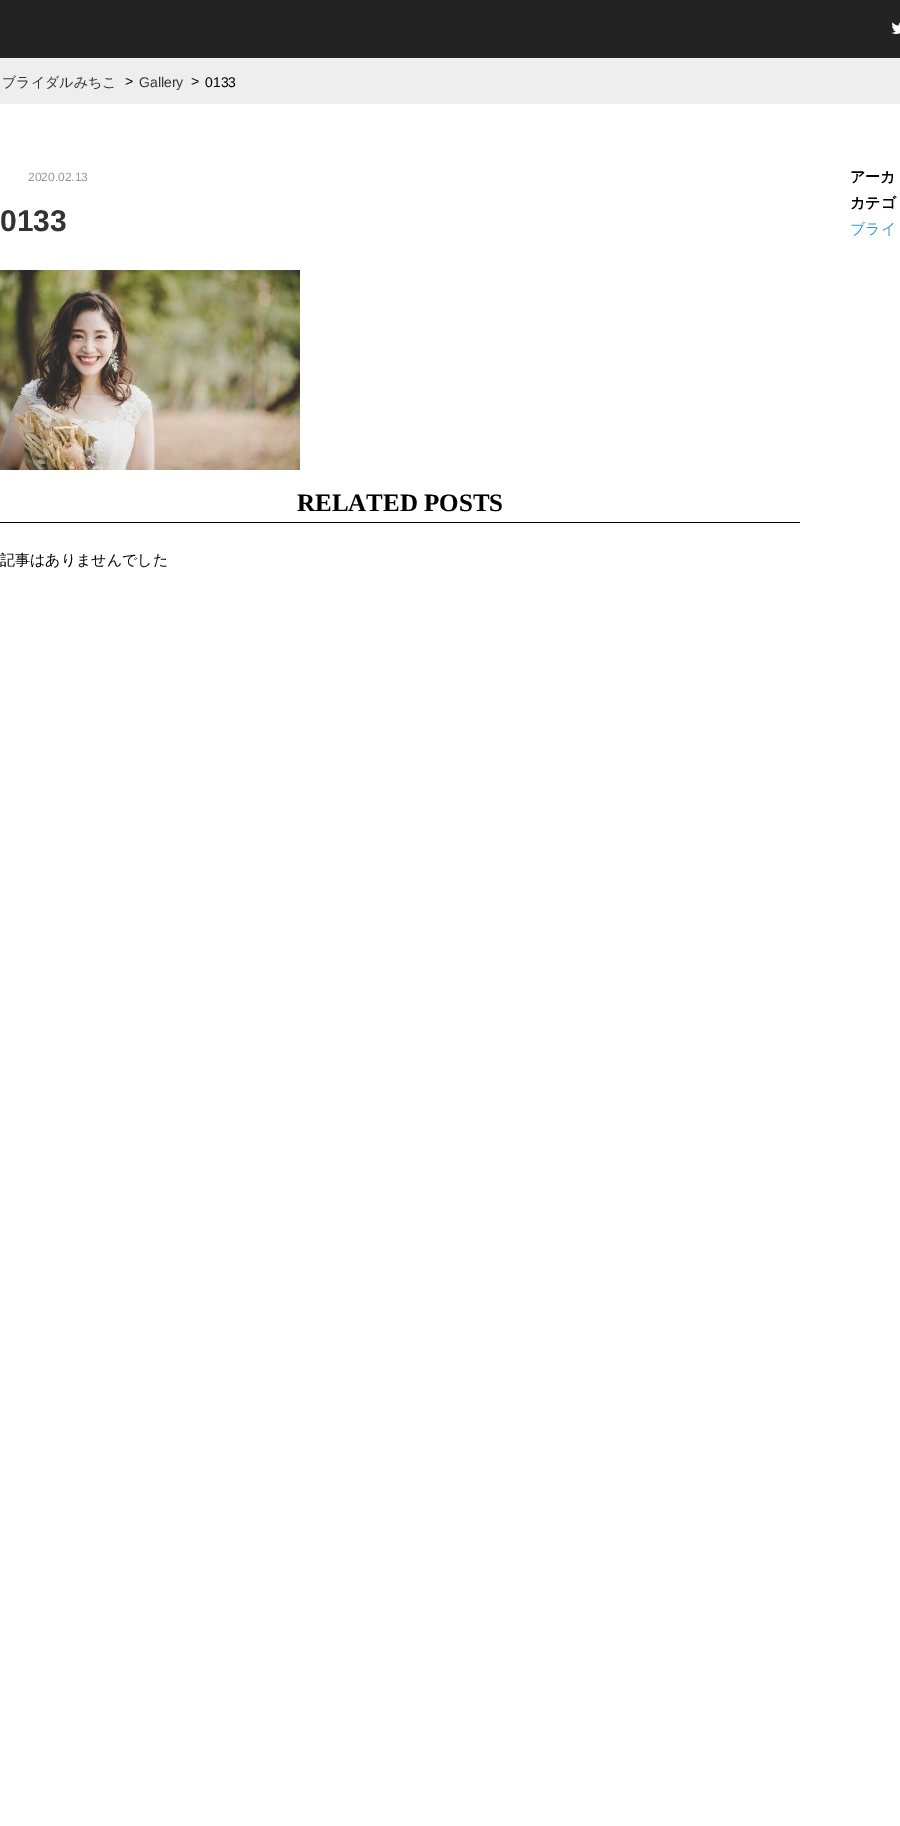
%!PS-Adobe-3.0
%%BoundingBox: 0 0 900 1826
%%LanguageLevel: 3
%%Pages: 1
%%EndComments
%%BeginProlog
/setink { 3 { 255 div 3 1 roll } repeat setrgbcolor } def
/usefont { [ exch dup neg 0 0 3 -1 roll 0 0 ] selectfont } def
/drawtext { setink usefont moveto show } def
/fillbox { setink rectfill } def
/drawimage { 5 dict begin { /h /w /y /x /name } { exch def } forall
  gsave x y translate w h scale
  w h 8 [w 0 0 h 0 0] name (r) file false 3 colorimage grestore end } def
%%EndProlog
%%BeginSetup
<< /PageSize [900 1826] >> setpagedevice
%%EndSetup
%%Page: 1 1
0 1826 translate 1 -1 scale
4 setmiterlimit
0 0 900 1826 255 255 255 fillbox
0 0 900 58 35 35 35 fillbox
(assets/img1.rgb) 891 22 9 12 drawimage
0 58 900 46 238 238 238 fillbox
(ブライダルみちこ) 2 87 /WenQuanYiZenHei-Medium 14 51 51 51 drawtext
(>) 125 86 /LiberationSans-Regular 14 0 0 0 drawtext
(Gallery) 139 87 /LiberationSans-Regular 14 51 51 51 drawtext
(>) 191 86 /LiberationSans-Regular 14 0 0 0 drawtext
(0133) 205 87 /LiberationSans-Regular 14 0 0 0 drawtext
(2020.02.13) 28 181 /LiberationSans-Regular 12 153 153 153 drawtext
(0133) 0 231 /LiberationSans-Bold 30 51 51 51 drawtext
(assets/img2.rgb) 0 270 300 200 drawimage
0 522 800 1 0 0 0 fillbox
(RELATED POSTS) 297 511 /LiberationSerif-Bold 25 0 0 0 drawtext
(記事はありませんでした) 0 565 /WenQuanYiZenHei-Medium 15 0 0 0 drawtext
(アーカ) 850 182 /WenQuanYiZenHei-Bold 15 0 0 0 drawtext
(カテゴ) 850 208 /WenQuanYiZenHei-Bold 15 0 0 0 drawtext
(ブライ) 850 234 /WenQuanYiZenHei-Medium 15 51 153 204 drawtext
showpage
%%EOF
